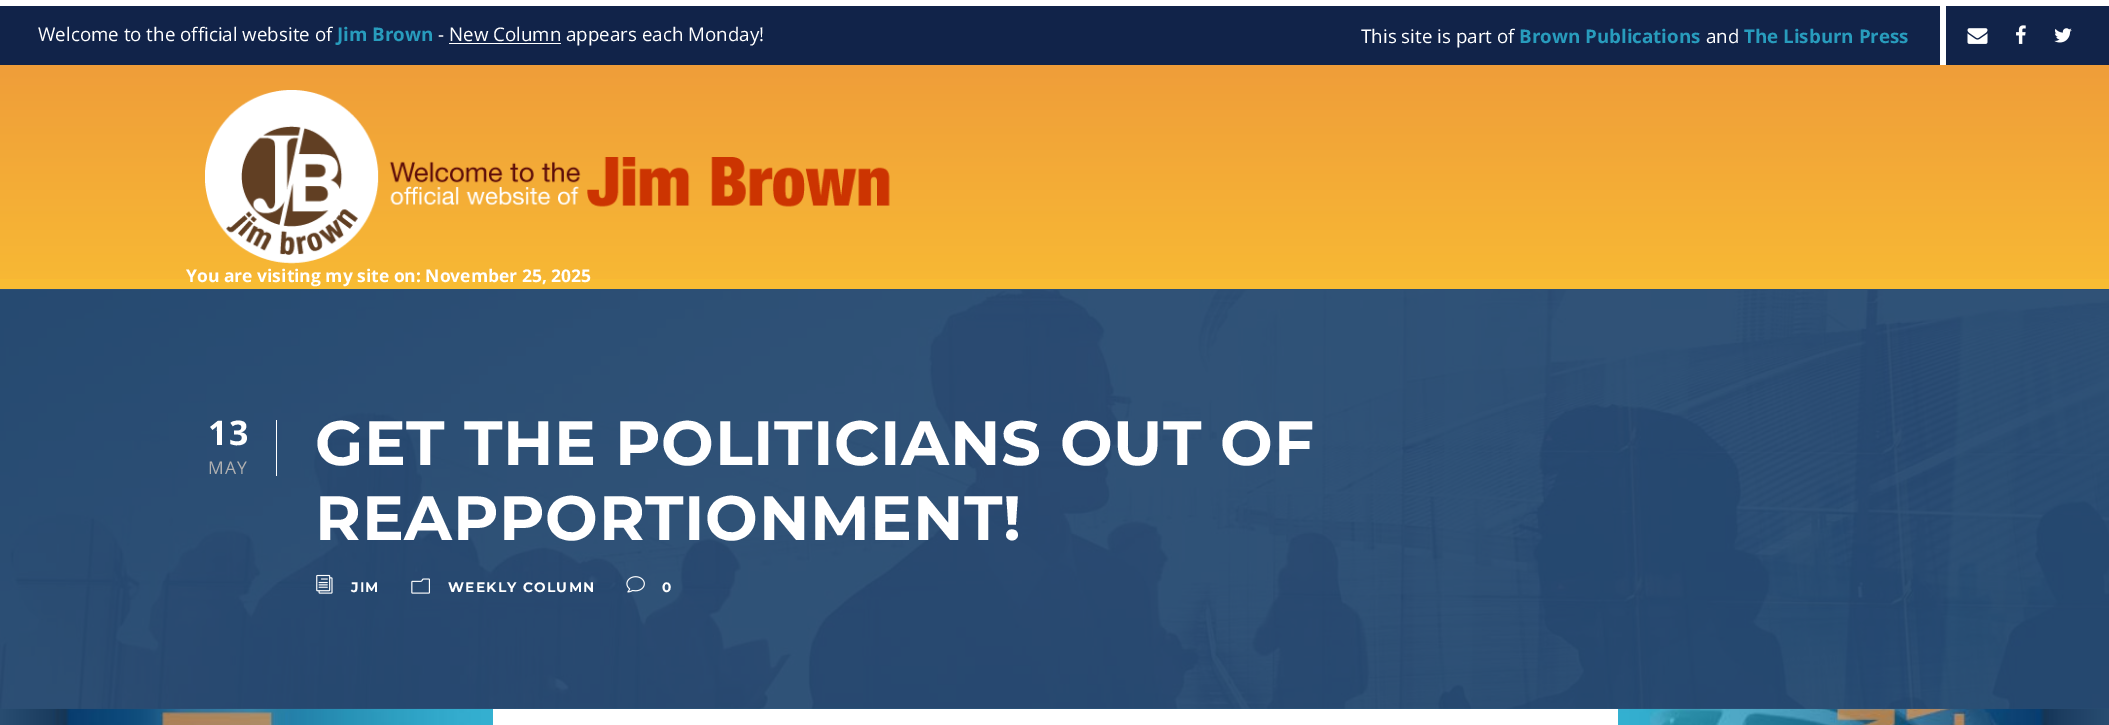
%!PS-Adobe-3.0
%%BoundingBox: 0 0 2109 725
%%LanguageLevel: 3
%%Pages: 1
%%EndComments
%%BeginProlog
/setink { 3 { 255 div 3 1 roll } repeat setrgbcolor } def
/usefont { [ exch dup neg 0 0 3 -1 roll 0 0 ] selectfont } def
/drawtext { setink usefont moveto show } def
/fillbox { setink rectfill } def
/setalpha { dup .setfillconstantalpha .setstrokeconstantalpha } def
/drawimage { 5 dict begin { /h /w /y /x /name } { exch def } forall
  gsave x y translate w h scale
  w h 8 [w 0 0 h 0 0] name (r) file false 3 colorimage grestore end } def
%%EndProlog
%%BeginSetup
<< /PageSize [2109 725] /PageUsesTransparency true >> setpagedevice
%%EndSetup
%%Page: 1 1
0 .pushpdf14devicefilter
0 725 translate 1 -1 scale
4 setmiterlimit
0 0 2109 725 42 81 117 fillbox
(assets/img1.rgb) 0 708 2109 17 drawimage
0 0 2109 6 255 255 255 fillbox
0 6 2109 59 17 35 73 fillbox
(Welcome to the official website of) 38 41 /OpenSans-Regular 18.75 255 255 255 drawtext
(Jim Brown) 337 41 /OpenSans-Bold 18.75 40 156 189 drawtext
(- New Column appears each Monday!) 438 41 /OpenSans-Regular 18.75 255 255 255 drawtext
449 43 112 1 255 255 255 fillbox
(This site is part of) 1361 43 /OpenSans-Regular 18.75 255 255 255 drawtext
(Brown Publications) 1519 43 /OpenSans-Bold 18.75 40 156 189 drawtext
(and) 1706 43 /OpenSans-Regular 18.75 255 255 255 drawtext
(The Lisburn Press) 1744 43 /OpenSans-Bold 18.75 40 156 189 drawtext
1940 6 6 59 255 255 255 fillbox
(assets/img2.rgb) 1967 28 21 16 drawimage
(assets/img3.rgb) 2016 25 10 19 drawimage
(assets/img4.rgb) 2054 28 18 15 drawimage
0 279 2109 10 248 188 51 fillbox
(assets/img5.rgb) 0 65 2109 214 drawimage
(assets/img6.rgb) 205 90 685 174 drawimage
(You are visiting my site on: November 25, 2025) 186 282 /OpenSans-Bold 17.5 255 255 255 drawtext
(assets/img7.rgb) 0 290 2109 419 drawimage
0.8 setalpha
0 290 2109 419 42 81 117 fillbox
1 setalpha
276 420 1 56 255 255 255 fillbox
/OpenSans-Bold 34 usefont
208 445 moveto 1.25 0 (13) ashow
/OpenSans-Regular 17.5 usefont
177 177 177 setink
208 474 moveto 1.25 0 (MAY) ashow
/Montserrat-Bold 62.5 usefont
255 255 255 setink
315 465 moveto 0.6 0 (GET THE POLITICIANS OUT OF) ashow
315 540 moveto 0.6 0 (REAPPORTIONMENT!) ashow
(assets/img8.rgb) 316 574 17 20 drawimage
/Montserrat-Bold 13.75 usefont
351 592 moveto 1.25 0 (JIM) ashow
(assets/img9.rgb) 411 578 19 16 drawimage
448 592 moveto 1.25 0 (WEEKLY COLUMN) ashow
(assets/img10.rgb) 626 576 19 17 drawimage
662 592 moveto 1.25 0 (0) ashow
493 709 1125 16 255 255 255 fillbox
.poppdf14devicefilter showpage
%%EOF
